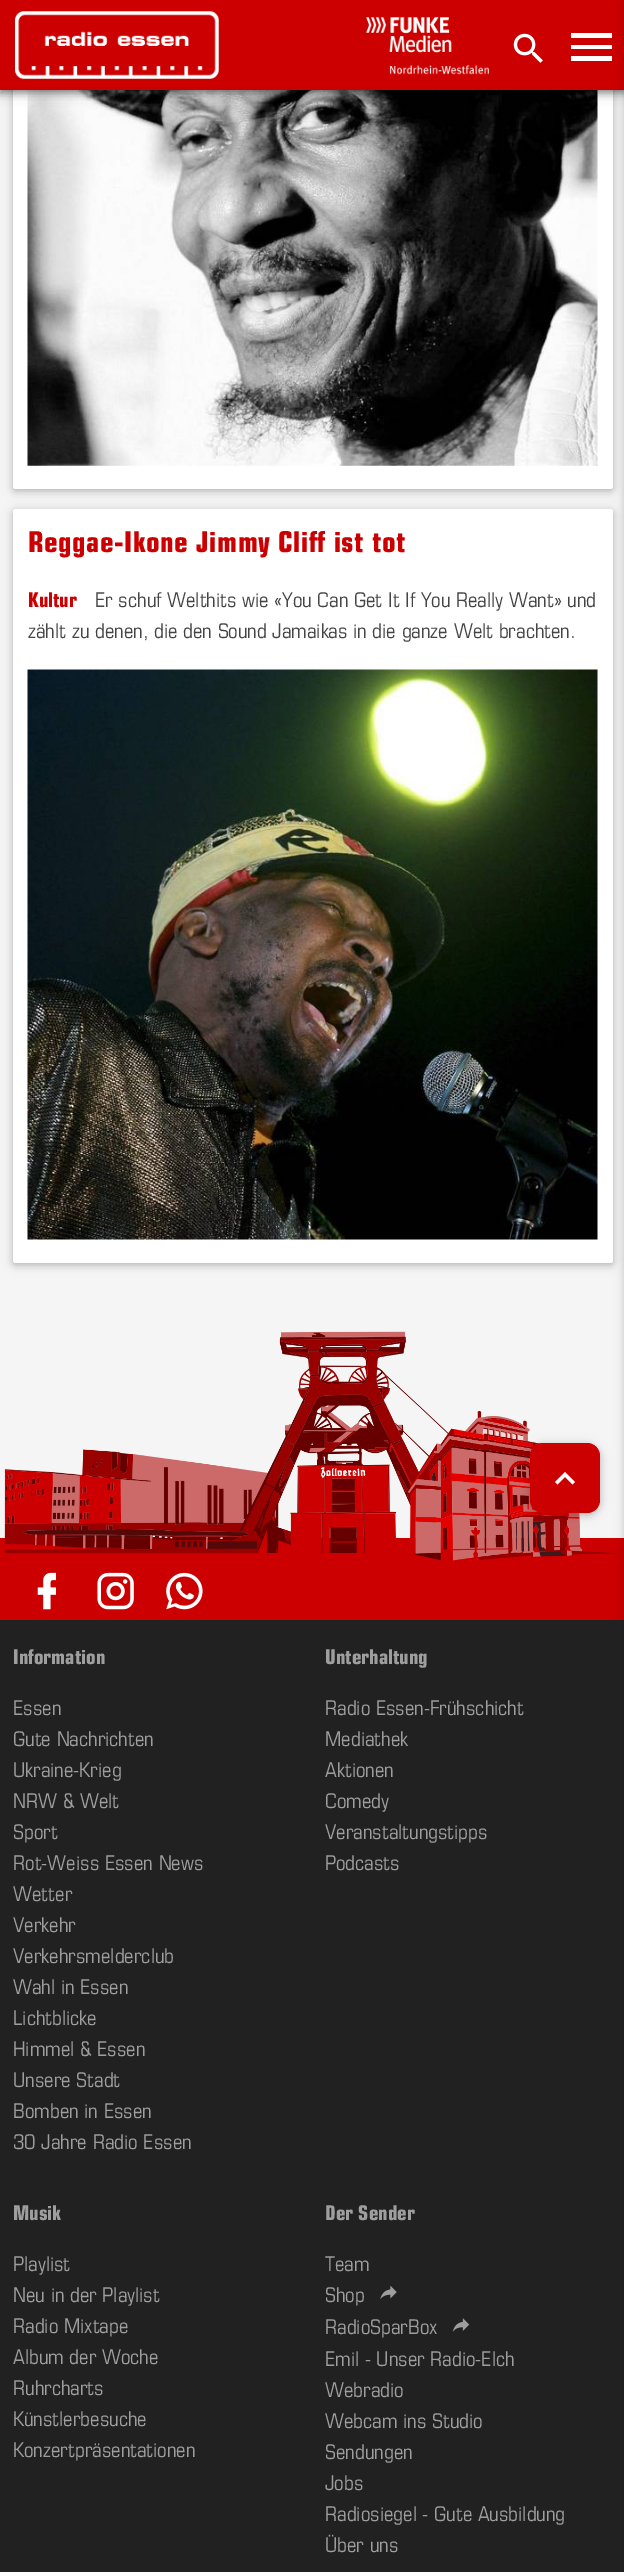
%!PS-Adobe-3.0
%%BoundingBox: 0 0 624 2572
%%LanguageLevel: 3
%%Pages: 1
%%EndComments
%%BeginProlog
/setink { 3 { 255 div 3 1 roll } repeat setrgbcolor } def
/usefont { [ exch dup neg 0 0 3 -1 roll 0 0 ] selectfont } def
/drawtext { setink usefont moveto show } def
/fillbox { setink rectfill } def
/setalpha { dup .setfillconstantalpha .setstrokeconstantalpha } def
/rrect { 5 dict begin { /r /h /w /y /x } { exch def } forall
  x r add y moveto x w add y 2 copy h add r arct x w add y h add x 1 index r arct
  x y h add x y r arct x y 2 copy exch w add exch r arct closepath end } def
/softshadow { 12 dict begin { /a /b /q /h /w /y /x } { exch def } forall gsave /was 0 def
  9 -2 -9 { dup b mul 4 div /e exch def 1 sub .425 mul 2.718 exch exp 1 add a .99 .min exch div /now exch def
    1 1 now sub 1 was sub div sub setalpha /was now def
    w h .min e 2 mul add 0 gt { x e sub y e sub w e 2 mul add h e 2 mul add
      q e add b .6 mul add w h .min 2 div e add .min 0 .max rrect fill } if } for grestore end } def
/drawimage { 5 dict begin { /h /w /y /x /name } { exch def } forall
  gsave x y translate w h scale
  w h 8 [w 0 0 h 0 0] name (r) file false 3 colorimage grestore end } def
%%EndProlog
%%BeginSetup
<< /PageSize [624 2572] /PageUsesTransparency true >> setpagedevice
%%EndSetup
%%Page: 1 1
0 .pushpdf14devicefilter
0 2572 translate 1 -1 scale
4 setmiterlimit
0 0 624 2572 245 245 245 fillbox
0 0 0 setink
13 -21 600 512 2.5 6 0.12 softshadow
13 -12 600 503 2.5 3 0.16 softshadow
255 255 255 setink
13 -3 600 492 2.5 rrect fill
(assets/img4.rgb) 27 90 571 376 drawimage
0 0 0 setink
0 3 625 90 0 6 0.12 softshadow
0 3 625 90 0 3 0.16 softshadow
0 3 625 90 0 6 0.12 softshadow
0 3 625 90 0 3 0.16 softshadow
0 0 624 90 204 0 0 fillbox
(assets/img1.rgb) 15 11 204 68 drawimage
(assets/img2.rgb) 366 17 123 58 drawimage
(assets/img3.rgb) 513 33 30 30 drawimage
255 255 255 setink
571 33 moveto 612 33 lineto 612 38 lineto 571 38 lineto closepath 571 45 moveto 612 45 lineto 612 49 lineto 571 49 lineto closepath 571 56 moveto 612 56 lineto 612 61 lineto 571 61 lineto closepath fill
0 0 0 setink
13 511 600 754 2.5 6 0.12 softshadow
13 511 600 754 2.5 3 0.16 softshadow
255 255 255 setink
13 509 600 754 2.5 rrect fill
/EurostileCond-Black 31.25 usefont
204 0 0 setink
28 552 moveto 0.6 0 (Reggae-Ikone Jimmy Cliff ist tot) ashow
(Kultur) 28 607 /EurostileCond-Black 22 204 0 0 drawtext
(Er schuf Welthits wie «You Can Get It If You Really Want» und) 95 607 /EurostileCond-Regular 22 69 69 69 drawtext
(zählt zu denen, die den Sound Jamaikas in die ganze Welt brachten.) 28 638 /EurostileCond-Regular 22 69 69 69 drawtext
(assets/img5.rgb) 27 669 571 571 drawimage
0 1538 624 82 204 0 0 fillbox
(assets/img6.rgb) 4 1331 614 230 drawimage
(assets/img7.rgb) 37 1572 19 38 drawimage
(assets/img8.rgb) 97 1572 37 38 drawimage
(assets/img9.rgb) 166 1572 37 38 drawimage
0 1620 624 952 33 33 33 fillbox
(Information) 13 1664 /EurostileCond-Black 22 158 158 158 drawtext
(Essen) 13 1715 /EurostileCond-Regular 22 158 158 158 drawtext
(Gute Nachrichten) 13 1746 /EurostileCond-Regular 22 158 158 158 drawtext
(Ukraine-Krieg) 13 1777 /EurostileCond-Regular 22 158 158 158 drawtext
(NRW & Welt) 13 1808 /EurostileCond-Regular 22 158 158 158 drawtext
(Sport) 13 1839 /EurostileCond-Regular 22 158 158 158 drawtext
(Rot-Weiss Essen News) 13 1870 /EurostileCond-Regular 22 158 158 158 drawtext
(Wetter) 13 1901 /EurostileCond-Regular 22 158 158 158 drawtext
(Verkehr) 13 1932 /EurostileCond-Regular 22 158 158 158 drawtext
(Verkehrsmelderclub) 13 1963 /EurostileCond-Regular 22 158 158 158 drawtext
(Wahl in Essen) 13 1994 /EurostileCond-Regular 22 158 158 158 drawtext
(Lichtblicke) 13 2025 /EurostileCond-Regular 22 158 158 158 drawtext
(Himmel & Essen) 13 2056 /EurostileCond-Regular 22 158 158 158 drawtext
(Unsere Stadt) 13 2087 /EurostileCond-Regular 22 158 158 158 drawtext
(Bomben in Essen) 13 2118 /EurostileCond-Regular 22 158 158 158 drawtext
(30 Jahre Radio Essen) 13 2149 /EurostileCond-Regular 22 158 158 158 drawtext
(Unterhaltung) 325 1664 /EurostileCond-Black 22 158 158 158 drawtext
(Radio Essen-Frühschicht) 325 1715 /EurostileCond-Regular 22 158 158 158 drawtext
(Mediathek) 325 1746 /EurostileCond-Regular 22 158 158 158 drawtext
(Aktionen) 325 1777 /EurostileCond-Regular 22 158 158 158 drawtext
(Comedy) 325 1808 /EurostileCond-Regular 22 158 158 158 drawtext
(Veranstaltungstipps) 325 1839 /EurostileCond-Regular 22 158 158 158 drawtext
(Podcasts) 325 1870 /EurostileCond-Regular 22 158 158 158 drawtext
(Musik) 13 2220 /EurostileCond-Black 22 158 158 158 drawtext
(Playlist) 13 2271 /EurostileCond-Regular 22 158 158 158 drawtext
(Neu in der Playlist) 13 2302 /EurostileCond-Regular 22 158 158 158 drawtext
(Radio Mixtape) 13 2333 /EurostileCond-Regular 22 158 158 158 drawtext
(Album der Woche) 13 2364 /EurostileCond-Regular 22 158 158 158 drawtext
(Ruhrcharts) 13 2395 /EurostileCond-Regular 22 158 158 158 drawtext
(Künstlerbesuche) 13 2426 /EurostileCond-Regular 22 158 158 158 drawtext
(Konzertpräsentationen) 13 2457 /EurostileCond-Regular 22 158 158 158 drawtext
(Der Sender) 325 2220 /EurostileCond-Black 22 158 158 158 drawtext
(Team) 325 2271 /EurostileCond-Regular 22 158 158 158 drawtext
(Shop) 325 2302 /EurostileCond-Regular 22 158 158 158 drawtext
(assets/img10.rgb) 380 2285 17 15 drawimage
(RadioSparBox) 325 2334 /EurostileCond-Regular 22 158 158 158 drawtext
(assets/img11.rgb) 452 2318 18 14 drawimage
(Emil - Unser Radio-Elch) 325 2366 /EurostileCond-Regular 22 158 158 158 drawtext
(Webradio) 325 2397 /EurostileCond-Regular 22 158 158 158 drawtext
(Webcam ins Studio) 325 2428 /EurostileCond-Regular 22 158 158 158 drawtext
(Sendungen) 325 2459 /EurostileCond-Regular 22 158 158 158 drawtext
(Jobs) 325 2490 /EurostileCond-Regular 22 158 158 158 drawtext
(Radiosiegel - Gute Ausbildung) 325 2521 /EurostileCond-Regular 22 158 158 158 drawtext
(Über uns) 325 2552 /EurostileCond-Regular 22 158 158 158 drawtext
0 0 0 setink
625 3 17 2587 0 6 0.12 softshadow
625 3 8 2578 0 3 0.16 softshadow
530 1445 70 70 13 6 0.12 softshadow
530 1445 70 70 13 3 0.16 softshadow
204 0 0 setink
530 1443 70 70 13 rrect fill
255 255 255 setink
557.5 1484.5 moveto 565 1477 lineto 572.5 1484.5 lineto 575 1482 lineto 565 1472 lineto 555 1482 lineto closepath fill
.poppdf14devicefilter showpage
%%EOF
